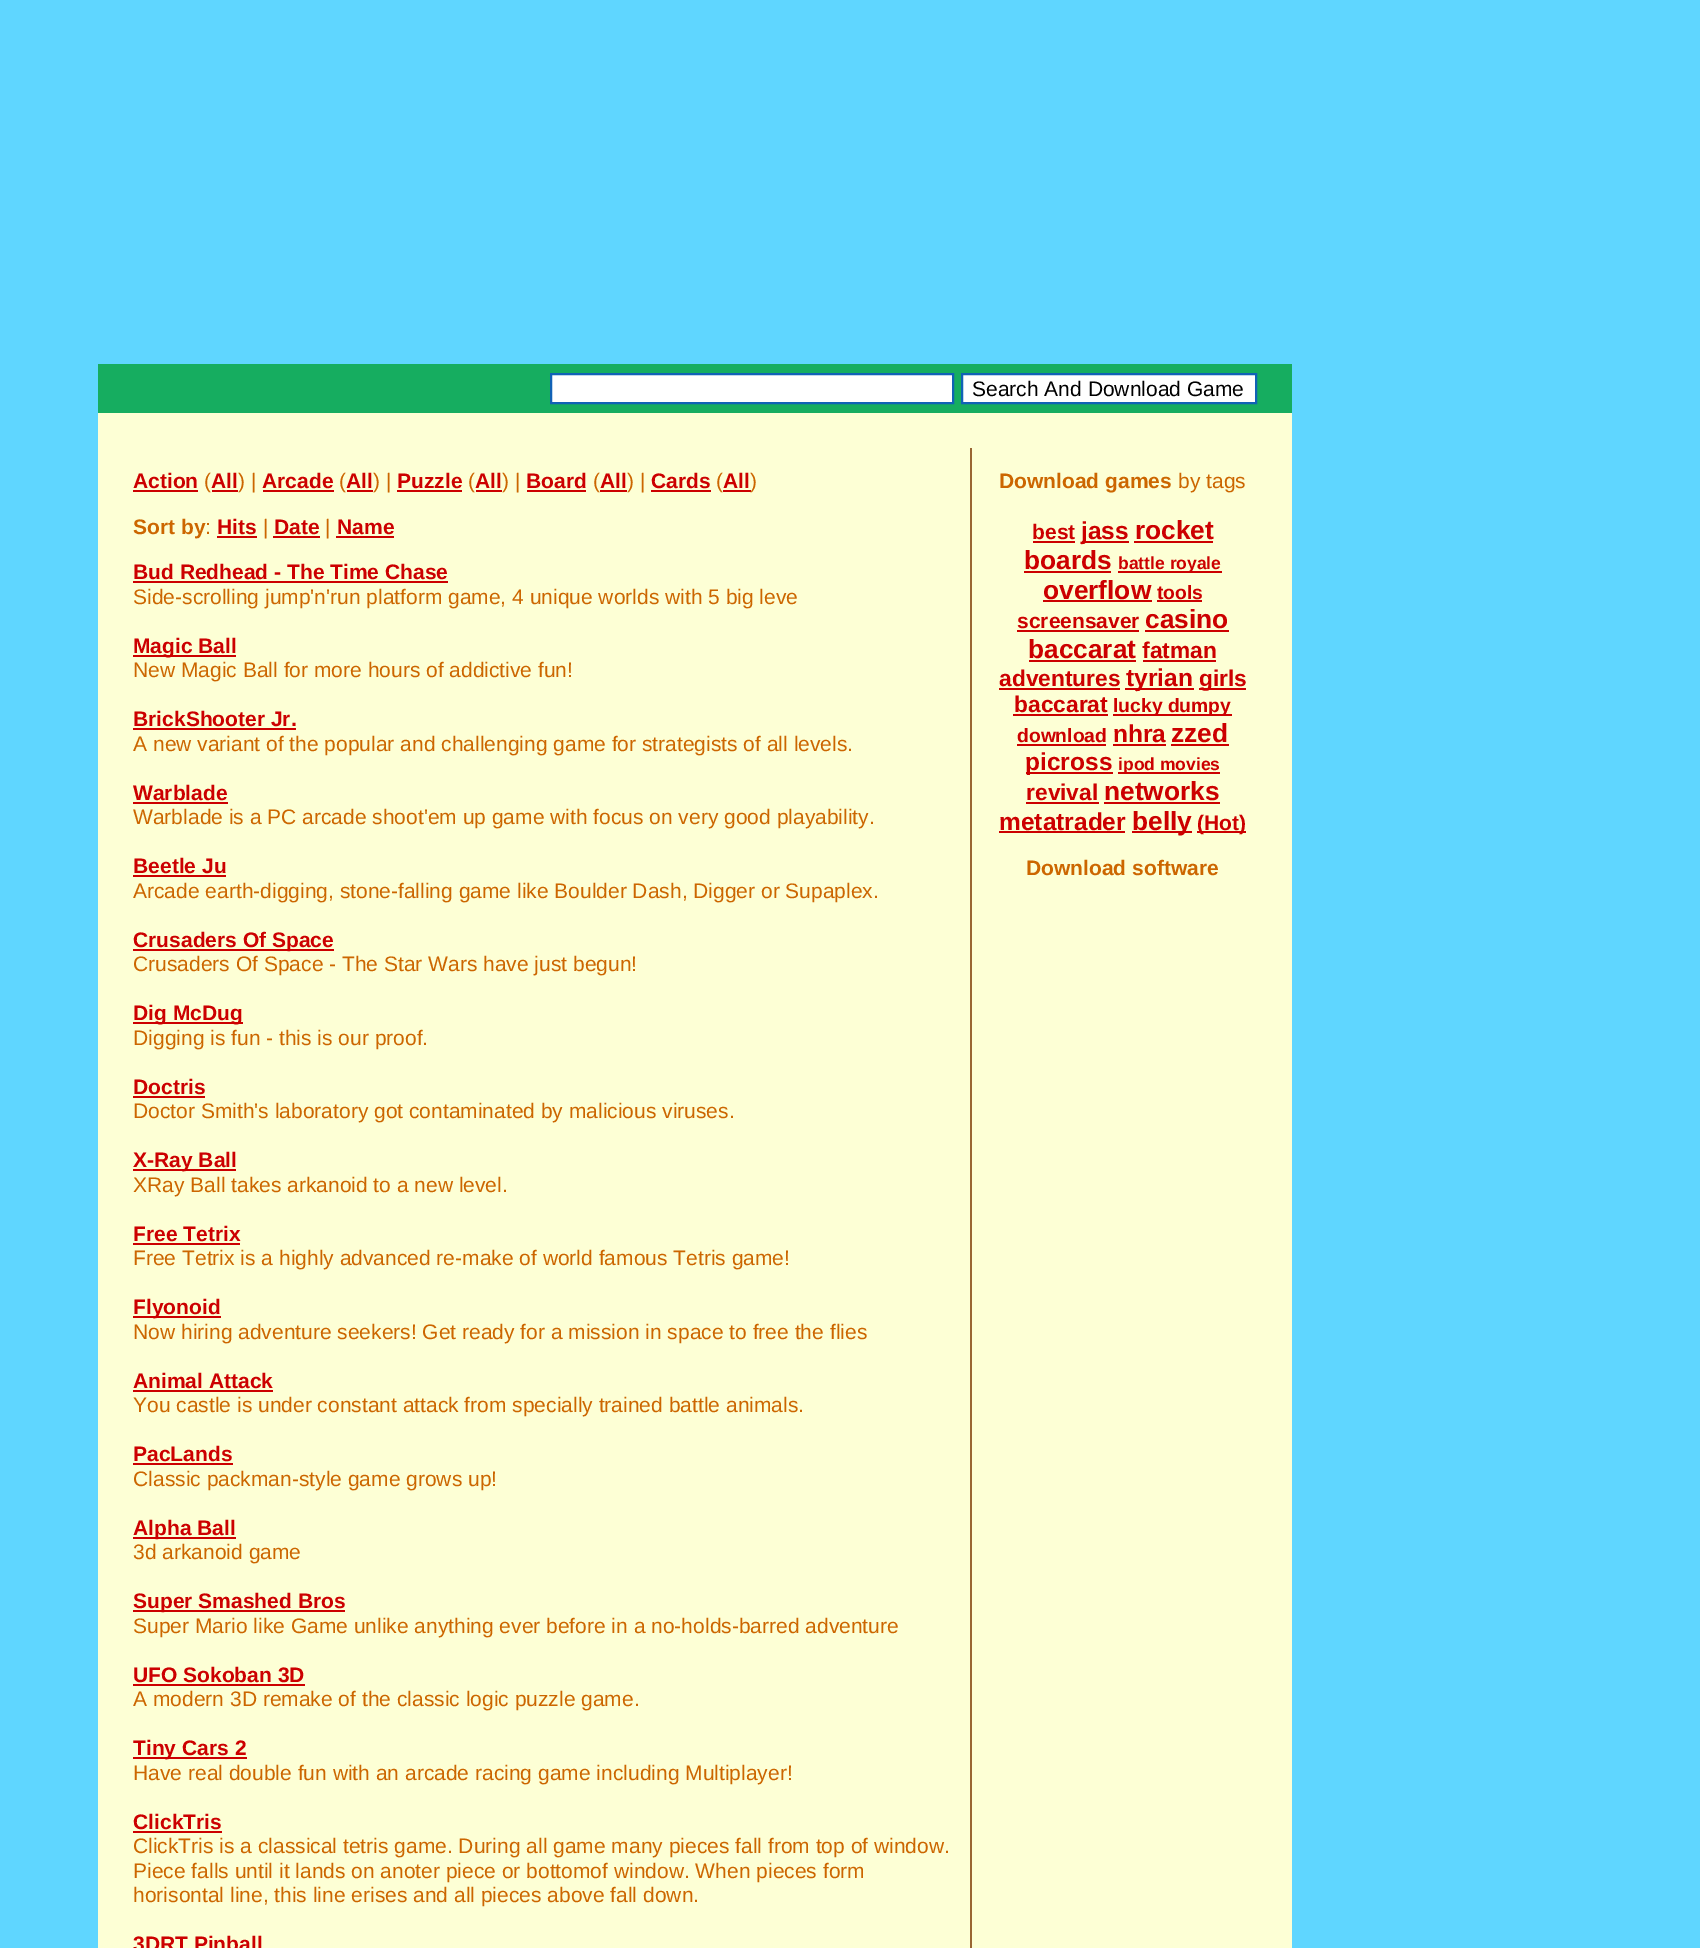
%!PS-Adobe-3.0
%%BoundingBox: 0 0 1700 1948
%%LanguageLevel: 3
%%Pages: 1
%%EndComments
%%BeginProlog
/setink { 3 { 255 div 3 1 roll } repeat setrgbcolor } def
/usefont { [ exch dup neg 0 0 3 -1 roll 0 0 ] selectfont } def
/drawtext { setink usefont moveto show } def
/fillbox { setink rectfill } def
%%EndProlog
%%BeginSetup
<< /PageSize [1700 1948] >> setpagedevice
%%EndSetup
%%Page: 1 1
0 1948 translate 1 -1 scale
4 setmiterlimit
0 0 1700 1948 95 214 255 fillbox
98 364 1194 49 22 173 96 fillbox
255 255 255 setink
551 374 moveto 953 374 lineto 953 403 lineto 551 403 lineto closepath gsave fill grestore
17 98 182 setink
2 setlinewidth
stroke
255 255 255 setink
962 374 moveto 1256 374 lineto 1256 403 lineto 962 403 lineto closepath gsave fill grestore
17 98 182 setink
stroke
(Search And Download Game) 972 396 /LiberationSans-Regular 21 0 0 0 drawtext
98 413 1194 1535 253 255 213 fillbox
(Action) 133 488 /LiberationSans-Bold 21 204 0 0 drawtext
133 490 65 2 204 0 0 fillbox
(\() 204 488 /LiberationSans-Regular 21 204 102 0 drawtext
(All) 211 488 /LiberationSans-Bold 21 204 0 0 drawtext
212 490 26 2 204 0 0 fillbox
(\) |) 238 488 /LiberationSans-Regular 21 204 102 0 drawtext
(Arcade) 262 488 /LiberationSans-Bold 21 204 0 0 drawtext
263 490 71 2 204 0 0 fillbox
(\() 339 488 /LiberationSans-Regular 21 204 102 0 drawtext
(All) 346 488 /LiberationSans-Bold 21 204 0 0 drawtext
347 490 26 2 204 0 0 fillbox
(\) |) 373 488 /LiberationSans-Regular 21 204 102 0 drawtext
(Puzzle) 397 488 /LiberationSans-Bold 21 204 0 0 drawtext
397 490 65 2 204 0 0 fillbox
(\() 468 488 /LiberationSans-Regular 21 204 102 0 drawtext
(All) 475 488 /LiberationSans-Bold 21 204 0 0 drawtext
476 490 26 2 204 0 0 fillbox
(\) |) 502 488 /LiberationSans-Regular 21 204 102 0 drawtext
(Board) 526 488 /LiberationSans-Bold 21 204 0 0 drawtext
527 490 59 2 204 0 0 fillbox
(\() 593 488 /LiberationSans-Regular 21 204 102 0 drawtext
(All) 600 488 /LiberationSans-Bold 21 204 0 0 drawtext
600 490 27 2 204 0 0 fillbox
(\) |) 627 488 /LiberationSans-Regular 21 204 102 0 drawtext
(Cards) 651 488 /LiberationSans-Bold 21 204 0 0 drawtext
651 490 60 2 204 0 0 fillbox
(\() 716 488 /LiberationSans-Regular 21 204 102 0 drawtext
(All) 723 488 /LiberationSans-Bold 21 204 0 0 drawtext
723 490 28 2 204 0 0 fillbox
(\)) 750 488 /LiberationSans-Regular 21 204 102 0 drawtext
(Sort by) 133 534 /LiberationSans-Bold 21 204 102 0 drawtext
(:) 205 534 /LiberationSans-Regular 21 204 102 0 drawtext
(Hits) 217 534 /LiberationSans-Bold 21 204 0 0 drawtext
217 536 40 2 204 0 0 fillbox
(|) 263 534 /LiberationSans-Regular 21 204 102 0 drawtext
(Date) 274 534 /LiberationSans-Bold 21 204 0 0 drawtext
273 536 47 2 204 0 0 fillbox
(|) 325 534 /LiberationSans-Regular 21 204 102 0 drawtext
(Name) 337 534 /LiberationSans-Bold 21 204 0 0 drawtext
336 536 58 2 204 0 0 fillbox
(Bud Redhead - The Time Chase) 133 579 /LiberationSans-Bold 21 204 0 0 drawtext
133 581 315 2 204 0 0 fillbox
(Side-scrolling jump'n'run platform game, 4 unique worlds with 5 big leve) 133 604 /LiberationSans-Regular 21 204 102 0 drawtext
133 655 103 2 204 0 0 fillbox
(Magic Ball) 133 653 /LiberationSans-Bold 21 204 0 0 drawtext
(New Magic Ball for more hours of addictive fun!) 133 677 /LiberationSans-Regular 21 204 102 0 drawtext
(BrickShooter Jr.) 133 726 /LiberationSans-Bold 21 204 0 0 drawtext
133 728 163 2 204 0 0 fillbox
(A new variant of the popular and challenging game for strategists of all levels.) 133 751 /LiberationSans-Regular 21 204 102 0 drawtext
(Warblade) 133 800 /LiberationSans-Bold 21 204 0 0 drawtext
133 802 95 2 204 0 0 fillbox
(Warblade is a PC arcade shoot'em up game with focus on very good playability.) 133 824 /LiberationSans-Regular 21 204 102 0 drawtext
(Beetle Ju) 133 873 /LiberationSans-Bold 21 204 0 0 drawtext
133 875 93 2 204 0 0 fillbox
(Arcade earth-digging, stone-falling game like Boulder Dash, Digger or Supaplex.) 133 898 /LiberationSans-Regular 21 204 102 0 drawtext
133 949 201 2 204 0 0 fillbox
(Crusaders Of Space) 133 947 /LiberationSans-Bold 21 204 0 0 drawtext
(Crusaders Of Space - The Star Wars have just begun!) 133 971 /LiberationSans-Regular 21 204 102 0 drawtext
133 1022 110 2 204 0 0 fillbox
(Dig McDug) 133 1020 /LiberationSans-Bold 21 204 0 0 drawtext
(Digging is fun - this is our proof.) 133 1045 /LiberationSans-Regular 21 204 102 0 drawtext
(Doctris) 133 1094 /LiberationSans-Bold 21 204 0 0 drawtext
133 1096 72 2 204 0 0 fillbox
(Doctor Smith's laboratory got contaminated by malicious viruses.) 133 1118 /LiberationSans-Regular 21 204 102 0 drawtext
133 1169 103 2 204 0 0 fillbox
(X-Ray Ball) 133 1167 /LiberationSans-Bold 21 204 0 0 drawtext
(XRay Ball takes arkanoid to a new level.) 133 1192 /LiberationSans-Regular 21 204 102 0 drawtext
(Free Tetrix) 133 1241 /LiberationSans-Bold 21 204 0 0 drawtext
133 1243 107 2 204 0 0 fillbox
(Free Tetrix is a highly advanced re-make of world famous Tetris game!) 133 1265 /LiberationSans-Regular 21 204 102 0 drawtext
133 1316 88 2 204 0 0 fillbox
(Flyonoid) 133 1314 /LiberationSans-Bold 21 204 0 0 drawtext
(Now hiring adventure seekers! Get ready for a mission in space to free the flies) 133 1339 /LiberationSans-Regular 21 204 102 0 drawtext
(Animal Attack) 133 1388 /LiberationSans-Bold 21 204 0 0 drawtext
133 1390 140 2 204 0 0 fillbox
(You castle is under constant attack from specially trained battle animals.) 133 1412 /LiberationSans-Regular 21 204 102 0 drawtext
(PacLands) 133 1461 /LiberationSans-Bold 21 204 0 0 drawtext
133 1463 100 2 204 0 0 fillbox
(Classic packman-style game grows up!) 133 1486 /LiberationSans-Regular 21 204 102 0 drawtext
133 1537 103 2 204 0 0 fillbox
(Alpha Ball) 133 1535 /LiberationSans-Bold 21 204 0 0 drawtext
(3d arkanoid game) 133 1559 /LiberationSans-Regular 21 204 102 0 drawtext
133 1610 212 2 204 0 0 fillbox
(Super Smashed Bros) 133 1608 /LiberationSans-Bold 21 204 0 0 drawtext
(Super Mario like Game unlike anything ever before in a no-holds-barred adventure) 133 1633 /LiberationSans-Regular 21 204 102 0 drawtext
(UFO Sokoban 3D) 133 1682 /LiberationSans-Bold 21 204 0 0 drawtext
133 1684 172 2 204 0 0 fillbox
(A modern 3D remake of the classic logic puzzle game.) 133 1706 /LiberationSans-Regular 21 204 102 0 drawtext
133 1757 114 2 204 0 0 fillbox
(Tiny Cars 2) 133 1755 /LiberationSans-Bold 21 204 0 0 drawtext
(Have real double fun with an arcade racing game including Multiplayer!) 133 1780 /LiberationSans-Regular 21 204 102 0 drawtext
(ClickTris) 133 1829 /LiberationSans-Bold 21 204 0 0 drawtext
133 1831 89 2 204 0 0 fillbox
(ClickTris is a classical tetris game. During all game many pieces fall from top of window.) 133 1853 /LiberationSans-Regular 21 204 102 0 drawtext
(Piece falls until it lands on anoter piece or bottomof window. When pieces form) 133 1878 /LiberationSans-Regular 21 204 102 0 drawtext
(horisontal line, this line erises and all pieces above fall down.) 133 1902 /LiberationSans-Regular 21 204 102 0 drawtext
(3DRT Pinball) 133 1951 /LiberationSans-Bold 21 204 0 0 drawtext
970 448 2 1500 153 102 51 fillbox
(Download games) 999 488 /LiberationSans-Bold 21 204 102 0 drawtext
(by tags) 1178 488 /LiberationSans-Regular 21 204 102 0 drawtext
(best) 1032 539 /LiberationSans-Bold 21 204 0 0 drawtext
1033 541 42 2 204 0 0 fillbox
1082 541 47 2 204 0 0 fillbox
(jass) 1081 539 /LiberationSans-Bold 24.5 204 0 0 drawtext
(rocket) 1135 539 /LiberationSans-Bold 26.25 204 0 0 drawtext
1134 541 79 2 204 0 0 fillbox
(boards) 1024 569 /LiberationSans-Bold 26.25 204 0 0 drawtext
1024 571 87 2 204 0 0 fillbox
1118 571 104 2 204 0 0 fillbox
(battle royale) 1118 569 /LiberationSans-Bold 17.5 204 0 0 drawtext
(overflow) 1043 599 /LiberationSans-Bold 26.25 204 0 0 drawtext
1043 600 109 2 204 0 0 fillbox
(tools) 1157 599 /LiberationSans-Bold 19.25 204 0 0 drawtext
1157 600 45 2 204 0 0 fillbox
(screensaver) 1017 628 /LiberationSans-Bold 21 204 0 0 drawtext
1017 630 122 2 204 0 0 fillbox
(casino) 1145 628 /LiberationSans-Bold 26.25 204 0 0 drawtext
1145 630 84 2 204 0 0 fillbox
(baccarat) 1028 658 /LiberationSans-Bold 26.25 204 0 0 drawtext
1029 660 107 2 204 0 0 fillbox
(fatman) 1142 658 /LiberationSans-Bold 22.75 204 0 0 drawtext
1143 660 73 2 204 0 0 fillbox
(adventures) 999 686 /LiberationSans-Bold 22.75 204 0 0 drawtext
999 688 121 2 204 0 0 fillbox
1125 688 69 2 204 0 0 fillbox
(tyrian) 1126 686 /LiberationSans-Bold 24.5 204 0 0 drawtext
1199 688 47 2 204 0 0 fillbox
(girls) 1199 686 /LiberationSans-Bold 22.75 204 0 0 drawtext
(baccarat) 1014 712 /LiberationSans-Bold 22.75 204 0 0 drawtext
1013 714 95 2 204 0 0 fillbox
1113 714 119 2 204 0 0 fillbox
(lucky dumpy) 1113 712 /LiberationSans-Bold 19.25 204 0 0 drawtext
(download) 1017 742 /LiberationSans-Bold 19.25 204 0 0 drawtext
1017 744 89 2 204 0 0 fillbox
(nhra) 1113 742 /LiberationSans-Bold 24.5 204 0 0 drawtext
1113 744 53 2 204 0 0 fillbox
(zzed) 1171 742 /LiberationSans-Bold 26.25 204 0 0 drawtext
1171 744 58 2 204 0 0 fillbox
1026 772 87 2 204 0 0 fillbox
(picross) 1025 770 /LiberationSans-Bold 24.5 204 0 0 drawtext
1118 772 102 2 204 0 0 fillbox
(ipod movies) 1118 770 /LiberationSans-Bold 17.5 204 0 0 drawtext
(revival) 1026 800 /LiberationSans-Bold 22.75 204 0 0 drawtext
1026 802 73 2 204 0 0 fillbox
(networks) 1104 800 /LiberationSans-Bold 26.25 204 0 0 drawtext
1104 802 116 2 204 0 0 fillbox
(metatrader) 999 830 /LiberationSans-Bold 24.5 204 0 0 drawtext
999 831 126 2 204 0 0 fillbox
1132 831 60 2 204 0 0 fillbox
(belly) 1132 830 /LiberationSans-Bold 26.25 204 0 0 drawtext
1197 831 49 2 204 0 0 fillbox
(\(Hot\)) 1197 830 /LiberationSans-Bold 21 204 0 0 drawtext
(Download software) 1026 875 /LiberationSans-Bold 21 204 102 0 drawtext
showpage
%%EOF
